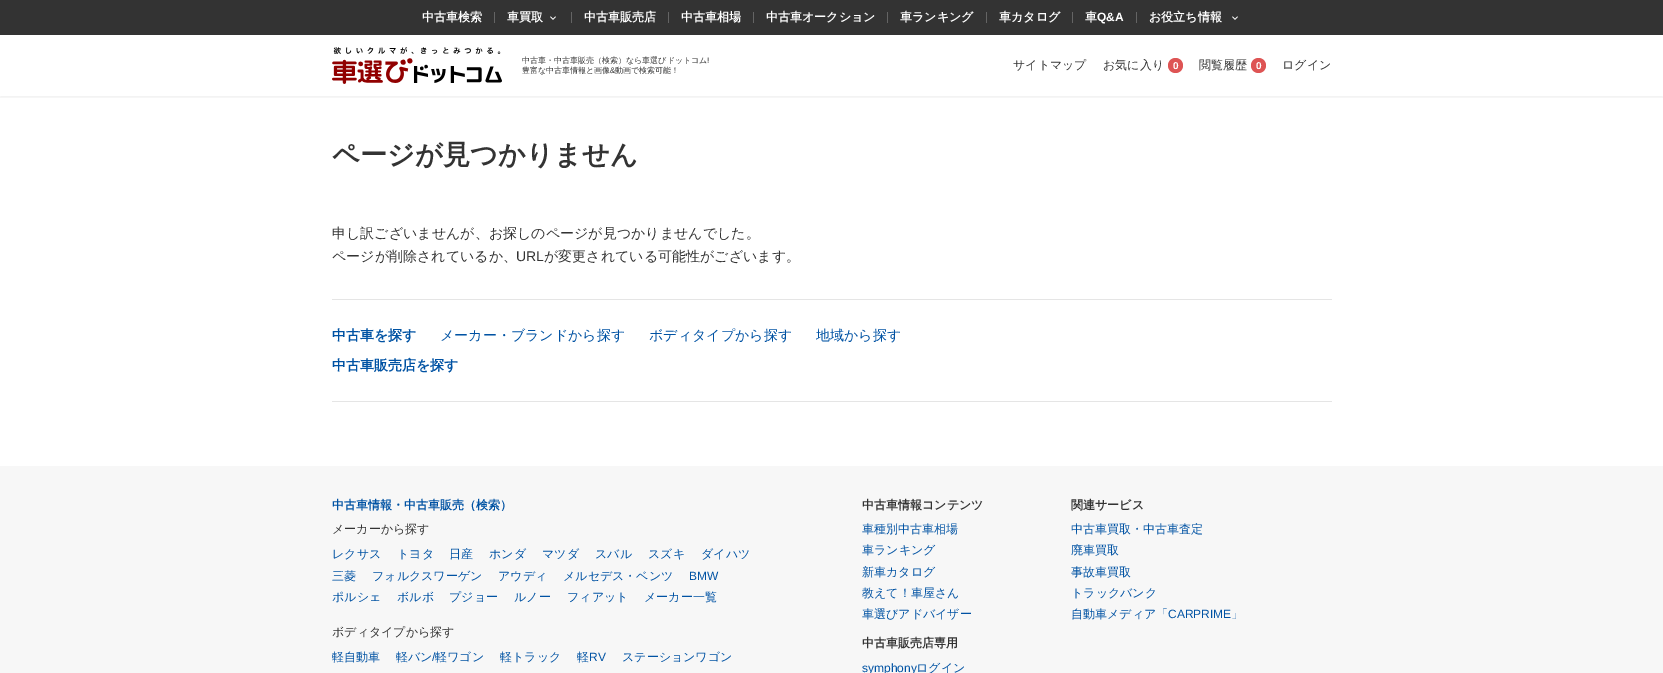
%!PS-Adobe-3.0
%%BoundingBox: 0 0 1663 673
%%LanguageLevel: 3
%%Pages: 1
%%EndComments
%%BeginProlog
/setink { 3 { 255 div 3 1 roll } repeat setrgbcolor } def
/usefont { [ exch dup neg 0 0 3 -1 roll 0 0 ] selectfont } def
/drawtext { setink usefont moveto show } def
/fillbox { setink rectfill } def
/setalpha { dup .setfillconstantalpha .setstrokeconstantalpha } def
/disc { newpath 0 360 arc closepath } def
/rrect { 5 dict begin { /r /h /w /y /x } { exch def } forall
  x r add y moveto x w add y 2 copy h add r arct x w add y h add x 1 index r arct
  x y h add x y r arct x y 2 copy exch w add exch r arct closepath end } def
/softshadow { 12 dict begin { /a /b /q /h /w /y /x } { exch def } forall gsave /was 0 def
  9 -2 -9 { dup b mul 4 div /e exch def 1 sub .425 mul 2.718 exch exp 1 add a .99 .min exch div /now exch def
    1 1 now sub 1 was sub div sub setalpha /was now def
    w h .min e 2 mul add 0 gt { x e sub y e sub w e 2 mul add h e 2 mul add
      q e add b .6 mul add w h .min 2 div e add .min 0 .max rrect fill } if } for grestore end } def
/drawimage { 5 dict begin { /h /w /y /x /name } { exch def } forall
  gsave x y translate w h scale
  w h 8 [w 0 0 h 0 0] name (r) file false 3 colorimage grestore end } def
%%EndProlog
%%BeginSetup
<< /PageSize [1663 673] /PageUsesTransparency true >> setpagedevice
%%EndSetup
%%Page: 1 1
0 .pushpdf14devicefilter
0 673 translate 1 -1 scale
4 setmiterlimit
0 0 1663 673 255 255 255 fillbox
0 0 1663 35 51 51 51 fillbox
(中古車検索) 422 21 /WenQuanYiZenHei-Bold 12 255 255 255 drawtext
494 12 1 11 100 100 100 fillbox
(車買取) 507 21 /WenQuanYiZenHei-Bold 12 255 255 255 drawtext
(assets/img1.rgb) 550 16 6 4 drawimage
571 12 1 11 100 100 100 fillbox
(中古車販売店) 584 21 /WenQuanYiZenHei-Bold 12 255 255 255 drawtext
668 12 1 11 100 100 100 fillbox
(中古車相場) 681 21 /WenQuanYiZenHei-Bold 12 255 255 255 drawtext
753 12 1 11 100 100 100 fillbox
(中古車オークション) 766 21 /WenQuanYiZenHei-Bold 12 255 255 255 drawtext
887 12 1 11 100 100 100 fillbox
(車ランキング) 900 21 /WenQuanYiZenHei-Bold 12 255 255 255 drawtext
986 12 1 11 100 100 100 fillbox
(車カタログ) 999 21 /WenQuanYiZenHei-Bold 12 255 255 255 drawtext
1072 12 1 11 100 100 100 fillbox
(車) 1085 21 /WenQuanYiZenHei-Bold 12 255 255 255 drawtext
(Q&A) 1097 21 /LiberationSans-Bold 12 255 255 255 drawtext
1136 12 1 11 100 100 100 fillbox
(お役立ち情報) 1149 21 /WenQuanYiZenHei-Bold 12 255 255 255 drawtext
(assets/img1.rgb) 1232 16 6 4 drawimage
gsave
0 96 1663 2 rectclip
0 0 0 setink
0 37 1663 61 0 1.5 0.05 softshadow
grestore
(assets/img2.rgb) 332 47 170 37 drawimage
(中古車・中古車販売（検索）なら車選びドットコム) 522 63 /WenQuanYiZenHei-Medium 8 51 51 51 drawtext
(!) 707 63 /LiberationSans-Regular 8 51 51 51 drawtext
(豊富な中古車情報と画像) 522 73 /WenQuanYiZenHei-Medium 8 51 51 51 drawtext
(&) 610 73 /LiberationSans-Regular 8 51 51 51 drawtext
(動画で検索可能！) 615 73 /WenQuanYiZenHei-Medium 8 51 51 51 drawtext
(サイトマップ) 1013 69 /WenQuanYiZenHei-Medium 12 51 51 51 drawtext
(お気に入り) 1103 69 /WenQuanYiZenHei-Medium 12 51 51 51 drawtext
222 84 84 setink
1175.5 65.5 7.5 disc fill
(0) 1173 69 /LiberationSans-Bold 10 255 255 255 drawtext
(閲覧履歴) 1199 69 /WenQuanYiZenHei-Medium 12 51 51 51 drawtext
222 84 84 setink
1258.5 65.5 7.5 disc fill
(0) 1256 69 /LiberationSans-Bold 10 255 255 255 drawtext
(ログイン) 1282 69 /WenQuanYiZenHei-Medium 12 51 51 51 drawtext
(ページが見つかりません) 332 164 /WenQuanYiZenHei-Bold 27.25 51 51 51 drawtext
(申し訳ございませんが、お探しのページが見つかりませんでした。) 332 238 /WenQuanYiZenHei-Medium 14 51 51 51 drawtext
(ページが削除されているか、) 332 261 /WenQuanYiZenHei-Medium 14 51 51 51 drawtext
(URL) 516 261 /LiberationSans-Regular 14 51 51 51 drawtext
(が変更されている可能性がございます。) 544 261 /WenQuanYiZenHei-Medium 14 51 51 51 drawtext
332 299 1000 1 229 229 229 fillbox
(中古車を探す) 332 340 /WenQuanYiZenHei-Bold 14 0 82 163 drawtext
(メーカー・ブランドから探す) 440 340 /WenQuanYiZenHei-Medium 14 0 82 163 drawtext
(ボディタイプから探す) 649 340 /WenQuanYiZenHei-Medium 14 0 82 163 drawtext
(地域から探す) 816 340 /WenQuanYiZenHei-Medium 14 0 82 163 drawtext
(中古車販売店を探す) 332 370 /WenQuanYiZenHei-Bold 14 0 82 163 drawtext
332 401 1000 1 229 229 229 fillbox
0 466 1663 207 247 247 247 fillbox
(中古車情報・中古車販売（検索）) 332 509 /WenQuanYiZenHei-Bold 12 0 82 163 drawtext
(メーカーから探す) 332 533 /WenQuanYiZenHei-Medium 12 51 51 51 drawtext
(レクサス) 332 558 /WenQuanYiZenHei-Medium 12 0 82 163 drawtext
(トヨタ) 397 558 /WenQuanYiZenHei-Medium 12 0 82 163 drawtext
(日産) 449 558 /WenQuanYiZenHei-Medium 12 0 82 163 drawtext
(ホンダ) 489 558 /WenQuanYiZenHei-Medium 12 0 82 163 drawtext
(マツダ) 542 558 /WenQuanYiZenHei-Medium 12 0 82 163 drawtext
(スバル) 595 558 /WenQuanYiZenHei-Medium 12 0 82 163 drawtext
(スズキ) 648 558 /WenQuanYiZenHei-Medium 12 0 82 163 drawtext
(ダイハツ) 701 558 /WenQuanYiZenHei-Medium 12 0 82 163 drawtext
(三菱) 332 580 /WenQuanYiZenHei-Medium 12 0 82 163 drawtext
(フォルクスワーゲン) 372 580 /WenQuanYiZenHei-Medium 12 0 82 163 drawtext
(アウディ) 498 580 /WenQuanYiZenHei-Medium 12 0 82 163 drawtext
(メルセデス・ベンツ) 563 580 /WenQuanYiZenHei-Medium 12 0 82 163 drawtext
(BMW) 689 580 /LiberationSans-Regular 12 0 82 163 drawtext
(ポルシェ) 332 601 /WenQuanYiZenHei-Medium 12 0 82 163 drawtext
(ボルボ) 397 601 /WenQuanYiZenHei-Medium 12 0 82 163 drawtext
(プジョー) 449 601 /WenQuanYiZenHei-Medium 12 0 82 163 drawtext
(ルノー) 514 601 /WenQuanYiZenHei-Medium 12 0 82 163 drawtext
(フィアット) 567 601 /WenQuanYiZenHei-Medium 12 0 82 163 drawtext
(メーカー一覧) 644 601 /WenQuanYiZenHei-Medium 12 0 82 163 drawtext
(ボディタイプから探す) 332 636 /WenQuanYiZenHei-Medium 12 51 51 51 drawtext
(軽自動車) 332 661 /WenQuanYiZenHei-Medium 12 0 82 163 drawtext
(軽バン) 396 661 /WenQuanYiZenHei-Medium 12 0 82 163 drawtext
(/) 432 661 /LiberationSans-Regular 12 0 82 163 drawtext
(軽ワゴン) 435 661 /WenQuanYiZenHei-Medium 12 0 82 163 drawtext
(軽トラック) 500 661 /WenQuanYiZenHei-Medium 12 0 82 163 drawtext
(軽) 577 661 /WenQuanYiZenHei-Medium 12 0 82 163 drawtext
(RV) 589 661 /LiberationSans-Regular 12 0 82 163 drawtext
(ステーションワゴン) 622 661 /WenQuanYiZenHei-Medium 12 0 82 163 drawtext
(中古車情報コンテンツ) 862 509 /WenQuanYiZenHei-Bold 12 51 51 51 drawtext
(車種別中古車相場) 862 533 /WenQuanYiZenHei-Medium 12 0 82 163 drawtext
(車ランキング) 862 554 /WenQuanYiZenHei-Medium 12 0 82 163 drawtext
(新車カタログ) 862 576 /WenQuanYiZenHei-Medium 12 0 82 163 drawtext
(教えて！車屋さん) 862 597 /WenQuanYiZenHei-Medium 12 0 82 163 drawtext
(車選びアドバイザー) 862 618 /WenQuanYiZenHei-Medium 12 0 82 163 drawtext
(中古車販売店専用) 862 647 /WenQuanYiZenHei-Bold 12 51 51 51 drawtext
(symphony) 862 672 /LiberationSans-Regular 12 0 82 163 drawtext
(ログイン) 916 672 /WenQuanYiZenHei-Medium 12 0 82 163 drawtext
(関連サービス) 1071 509 /WenQuanYiZenHei-Bold 12 51 51 51 drawtext
(中古車買取・中古車査定) 1071 533 /WenQuanYiZenHei-Medium 12 0 82 163 drawtext
(廃車買取) 1071 554 /WenQuanYiZenHei-Medium 12 0 82 163 drawtext
(事故車買取) 1071 576 /WenQuanYiZenHei-Medium 12 0 82 163 drawtext
(トラックバンク) 1071 597 /WenQuanYiZenHei-Medium 12 0 82 163 drawtext
(自動車メディア「) 1071 618 /WenQuanYiZenHei-Medium 12 0 82 163 drawtext
(CARPRIME) 1168 618 /LiberationSans-Regular 12 0 82 163 drawtext
(」) 1231 618 /WenQuanYiZenHei-Medium 12 0 82 163 drawtext
.poppdf14devicefilter showpage
%%EOF
